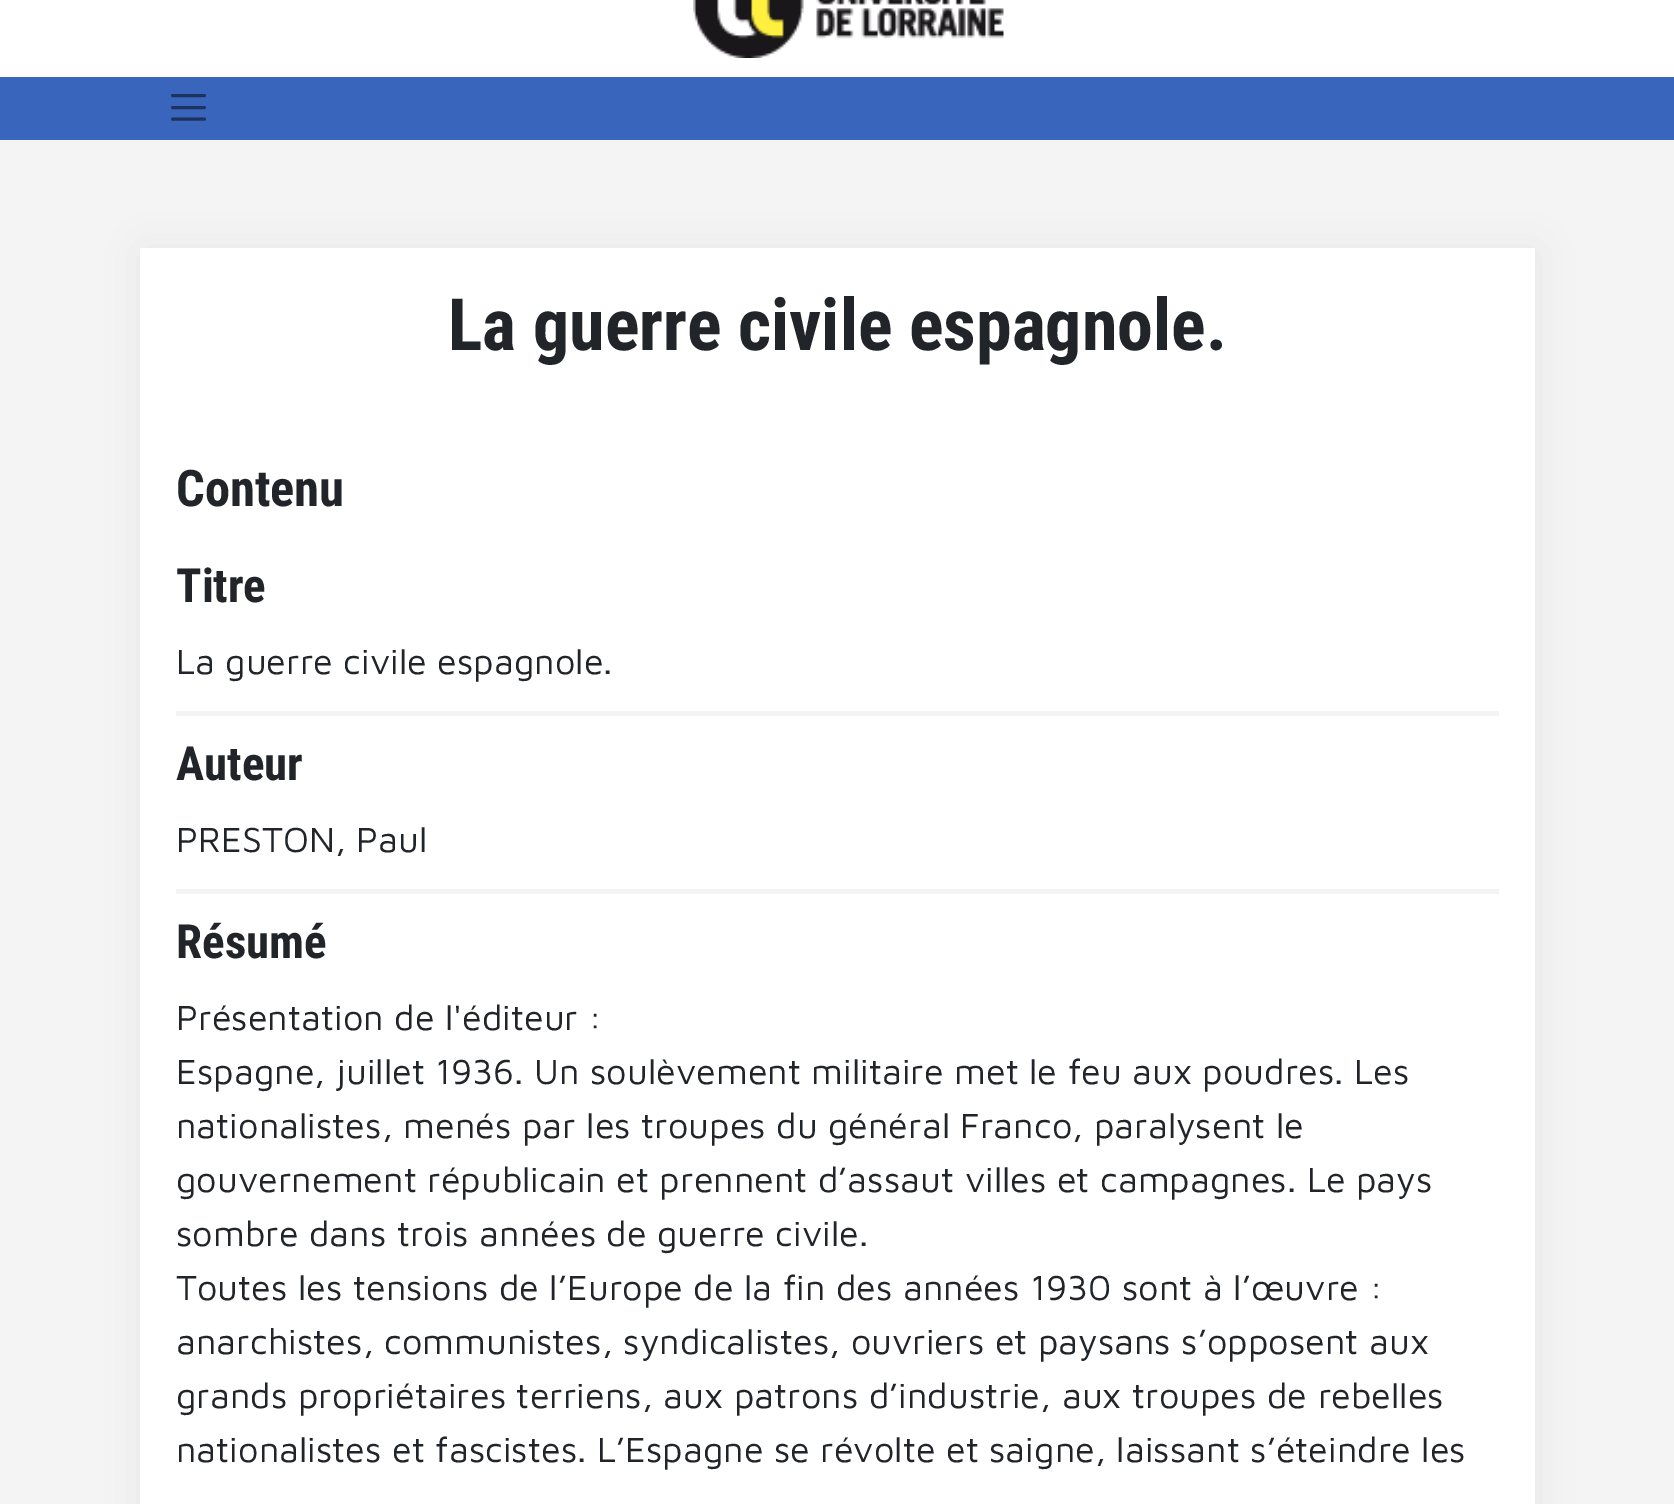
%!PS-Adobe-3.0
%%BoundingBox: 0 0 1674 1504
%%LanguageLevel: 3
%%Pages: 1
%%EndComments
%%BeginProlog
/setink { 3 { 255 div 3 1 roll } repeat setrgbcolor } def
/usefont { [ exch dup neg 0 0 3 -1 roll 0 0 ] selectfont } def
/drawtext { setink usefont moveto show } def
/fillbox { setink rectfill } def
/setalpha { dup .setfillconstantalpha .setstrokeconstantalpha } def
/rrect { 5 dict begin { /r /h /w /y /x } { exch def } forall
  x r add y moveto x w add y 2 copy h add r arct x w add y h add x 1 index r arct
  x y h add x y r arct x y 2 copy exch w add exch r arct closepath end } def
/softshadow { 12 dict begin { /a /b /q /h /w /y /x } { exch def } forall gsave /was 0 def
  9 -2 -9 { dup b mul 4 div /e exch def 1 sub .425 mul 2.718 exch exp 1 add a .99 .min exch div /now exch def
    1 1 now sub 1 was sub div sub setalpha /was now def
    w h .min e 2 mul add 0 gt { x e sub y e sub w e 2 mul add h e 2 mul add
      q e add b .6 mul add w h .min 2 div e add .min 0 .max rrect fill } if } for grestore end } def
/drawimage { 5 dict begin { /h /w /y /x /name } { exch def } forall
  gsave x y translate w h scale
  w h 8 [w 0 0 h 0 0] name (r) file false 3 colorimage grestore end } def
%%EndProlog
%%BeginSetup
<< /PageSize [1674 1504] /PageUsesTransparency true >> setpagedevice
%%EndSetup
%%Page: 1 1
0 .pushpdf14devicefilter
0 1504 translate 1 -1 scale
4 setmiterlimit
0 0 1674 1504 244 244 244 fillbox
0 0 1674 77 255 255 255 fillbox
(assets/img1.rgb) 693 0 311 58 drawimage
0 77 1674 63 57 101 188 fillbox
29 51 94 setink
2.9 setlinewidth
1 setlinecap
172.5 95.5 moveto 204.5 95.5 lineto 172.5 107.5 moveto 204.5 107.5 lineto 172.5 119 moveto 204.5 119 lineto stroke
162 162 162 setink
142 250 1395 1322 0 22.5 0.17 softshadow
140 248 1395 1256 255 255 255 fillbox
(La guerre civile espagnole.) 448 350 /RobotoCondensed-Bold 72 33 37 41 drawtext
(Contenu) 176 506 /RobotoCondensed-Bold 50.5 33 37 41 drawtext
176 711 1323 5 244 244 244 fillbox
(Titre) 176 602 /RobotoCondensed-Bold 47 33 37 41 drawtext
(La guerre civile espagnole.) 176 674 /MavenPro-Regular 36 33 37 41 drawtext
176 889 1323 5 244 244 244 fillbox
(Auteur) 176 780 /RobotoCondensed-Bold 47 33 37 41 drawtext
(PRESTON, Paul) 176 852 /MavenPro-Regular 36 33 37 41 drawtext
(Résumé) 176 958 /RobotoCondensed-Bold 47 33 37 41 drawtext
(Présentation de l'éditeur :) 176 1030 /MavenPro-Regular 36 33 37 41 drawtext
(Espagne, juillet 1936. Un soulèvement militaire met le feu aux poudres. Les) 176 1084 /MavenPro-Regular 36 33 37 41 drawtext
(nationalistes, menés par les troupes du général Franco, paralysent le) 176 1138 /MavenPro-Regular 36 33 37 41 drawtext
(gouvernement républicain et prennent d’assaut villes et campagnes. Le pays) 176 1192 /MavenPro-Regular 36 33 37 41 drawtext
(sombre dans trois années de guerre civile.) 176 1246 /MavenPro-Regular 36 33 37 41 drawtext
(Toutes les tensions de l’Europe de la fin des années 1930 sont à l’œuvre :) 176 1300 /MavenPro-Regular 36 33 37 41 drawtext
(anarchistes, communistes, syndicalistes, ouvriers et paysans s’opposent aux) 176 1354 /MavenPro-Regular 36 33 37 41 drawtext
(grands propriétaires terriens, aux patrons d’industrie, aux troupes de rebelles) 176 1408 /MavenPro-Regular 36 33 37 41 drawtext
(nationalistes et fascistes. L’Espagne se révolte et saigne, laissant s’éteindre les) 176 1462 /MavenPro-Regular 36 33 37 41 drawtext
.poppdf14devicefilter showpage
%%EOF
